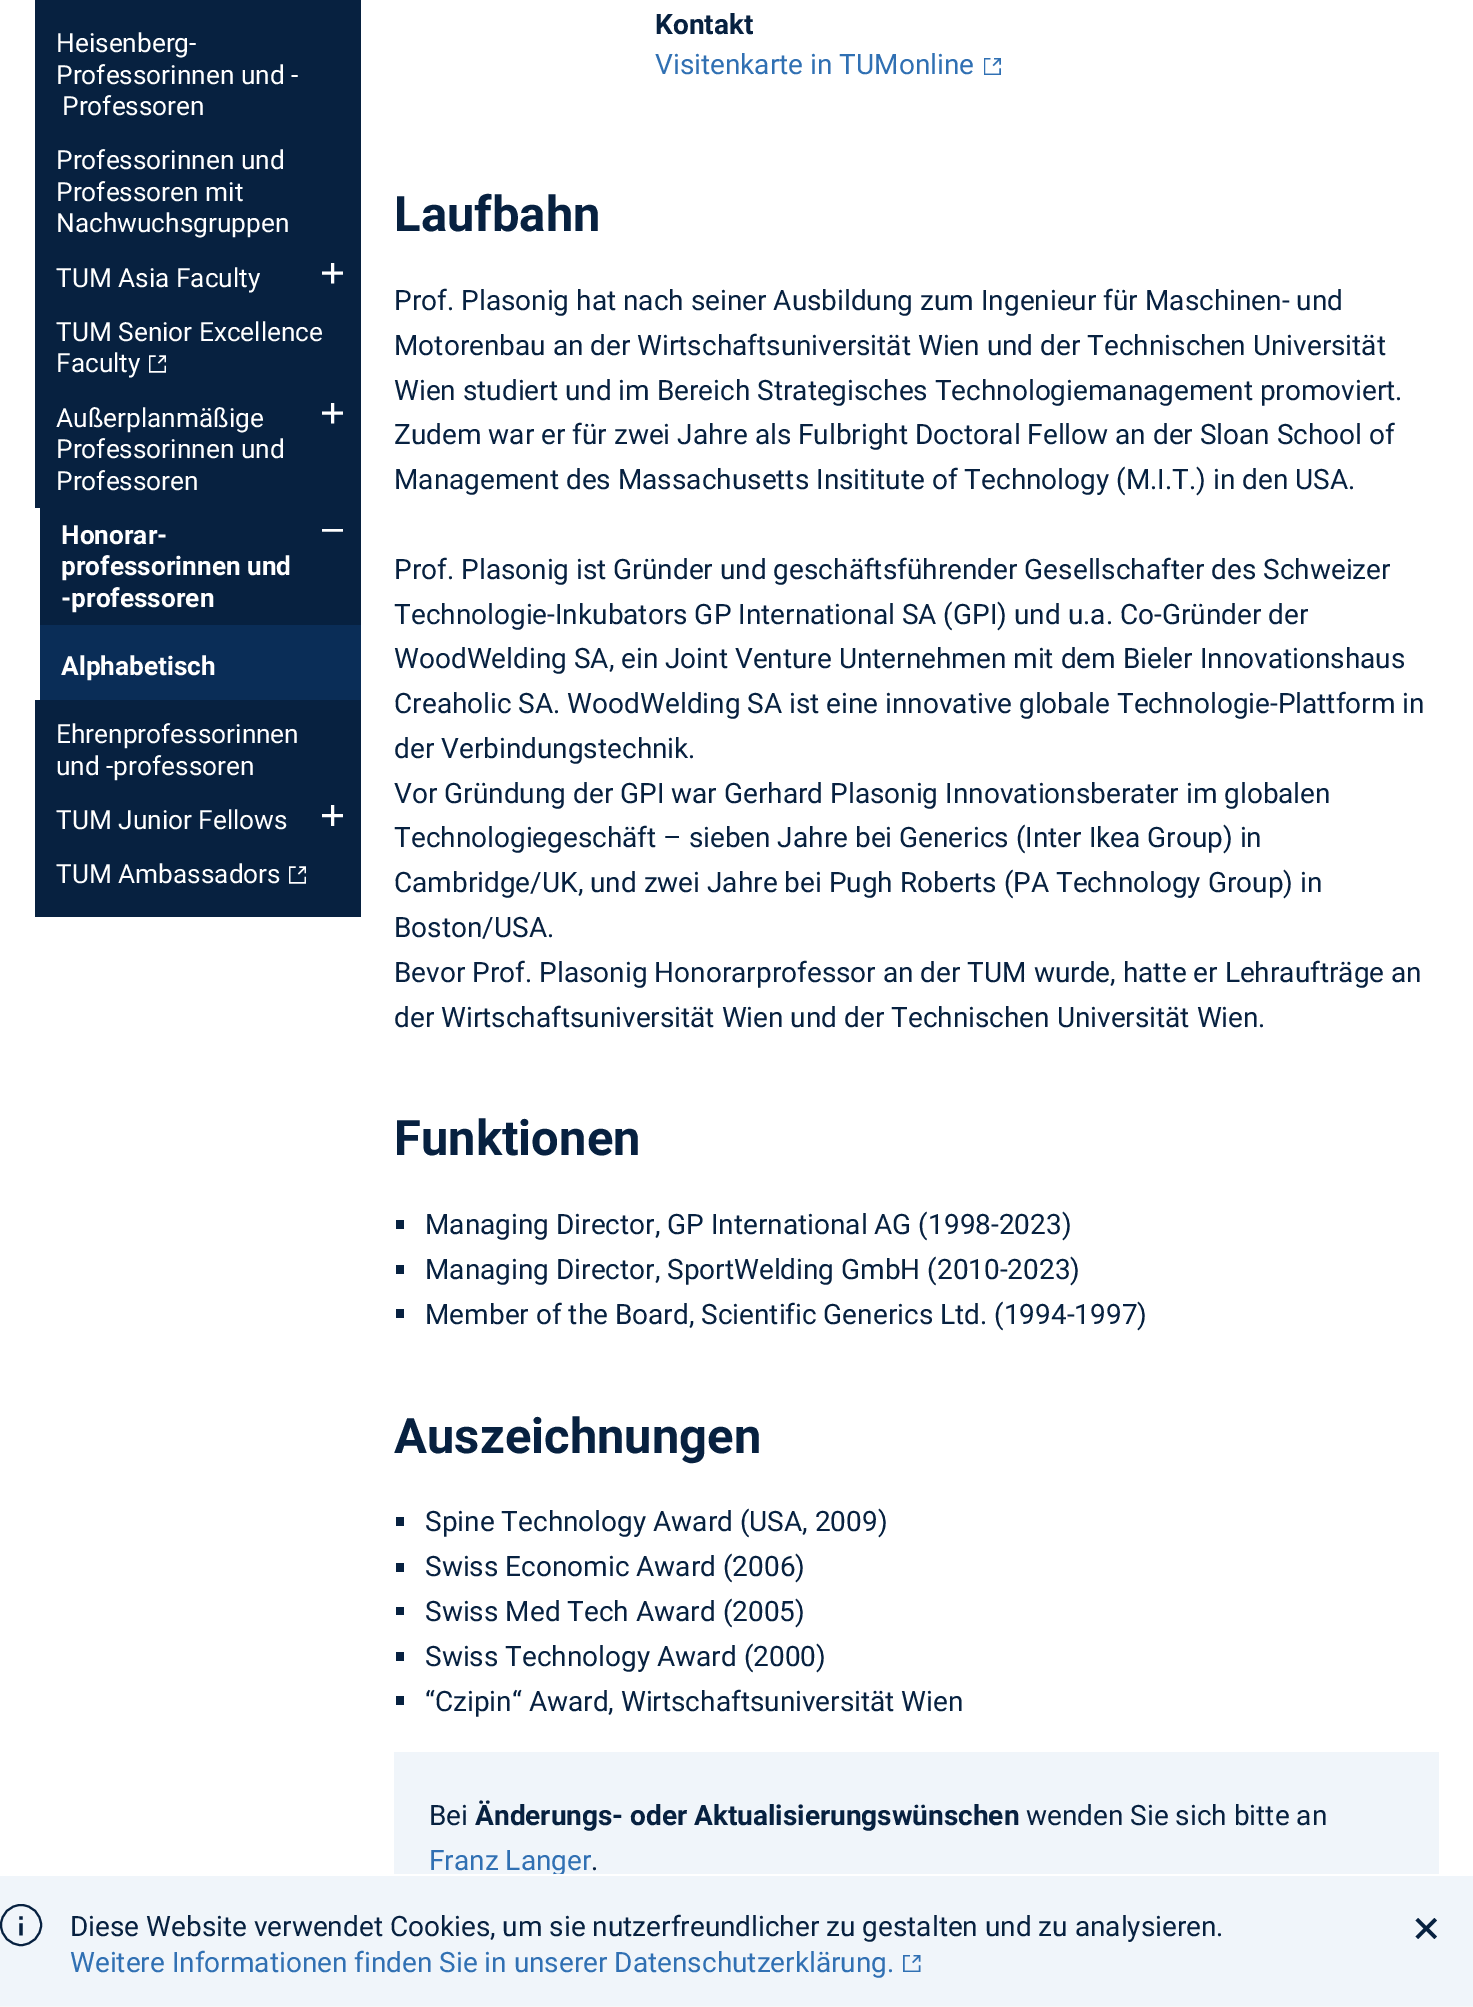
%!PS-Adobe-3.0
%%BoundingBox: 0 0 1473 2007
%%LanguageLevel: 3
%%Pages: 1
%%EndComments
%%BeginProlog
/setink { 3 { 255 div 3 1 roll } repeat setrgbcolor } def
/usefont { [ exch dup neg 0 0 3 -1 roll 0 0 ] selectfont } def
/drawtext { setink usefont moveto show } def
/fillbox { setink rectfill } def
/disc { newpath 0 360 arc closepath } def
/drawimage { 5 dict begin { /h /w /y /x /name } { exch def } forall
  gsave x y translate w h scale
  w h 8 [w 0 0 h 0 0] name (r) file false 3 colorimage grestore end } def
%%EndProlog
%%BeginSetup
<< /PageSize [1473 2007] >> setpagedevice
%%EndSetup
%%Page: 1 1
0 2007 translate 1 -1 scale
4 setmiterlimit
0 0 1473 2007 255 255 255 fillbox
35 0 326 917 7 33 64 fillbox
(Heisenberg-) 56 52 /Roboto-Regular 26.25 255 255 255 drawtext
(Professorinnen und -) 56 84 /Roboto-Regular 26.25 255 255 255 drawtext
(Professoren) 62 115 /Roboto-Regular 26.25 255 255 255 drawtext
(Professorinnen und) 56 169 /Roboto-Regular 26.25 255 255 255 drawtext
(Professoren mit) 56 201 /Roboto-Regular 26.25 255 255 255 drawtext
(Nachwuchsgruppen) 56 232 /Roboto-Regular 26.25 255 255 255 drawtext
(TUM Asia Faculty) 56 287 /Roboto-Regular 26.25 255 255 255 drawtext
gsave
322 263 21 21 rectclip
3 setlinewidth
2 setlinecap
1 setlinejoin
332.5 264 moveto 332.5 282 lineto 323.5 273 moveto 341.5 273 lineto stroke
grestore
(TUM Senior Excellence) 56 341 /Roboto-Regular 26.25 255 255 255 drawtext
(Faculty) 56 372 /Roboto-Regular 26.25 255 255 255 drawtext
(assets/img1.rgb) 149 355 17 18 drawimage
(Außerplanmäßige) 56 427 /Roboto-Regular 26.25 255 255 255 drawtext
gsave
322 403 21 21 rectclip
3 setlinewidth
2 setlinecap
1 setlinejoin
332.5 404 moveto 332.5 422 lineto 323.5 413 moveto 341.5 413 lineto stroke
grestore
(Professorinnen und) 56 458 /Roboto-Regular 26.25 255 255 255 drawtext
(Professoren) 56 490 /Roboto-Regular 26.25 255 255 255 drawtext
(Honorar-) 61 544 /Roboto-Bold 26.25 255 255 255 drawtext
gsave
322 529 21 4 rectclip
3 setlinewidth
2 setlinecap
1 setlinejoin
323.5 530 moveto 341.5 530 lineto stroke
grestore
(professorinnen und) 61 575 /Roboto-Bold 26.25 255 255 255 drawtext
(-professoren) 61 607 /Roboto-Bold 26.25 255 255 255 drawtext
40 625 321 75 10 45 87 fillbox
35 508 5 192 255 255 255 fillbox
(Alphabetisch) 61 675 /Roboto-Bold 26.25 255 255 255 drawtext
(Ehrenprofessorinnen) 56 743 /Roboto-Regular 26.25 255 255 255 drawtext
(und -professoren) 56 775 /Roboto-Regular 26.25 255 255 255 drawtext
(TUM Junior Fellows) 56 829 /Roboto-Regular 26.25 255 255 255 drawtext
3 setlinewidth
2 setlinecap
1 setlinejoin
332.5 806.5 moveto 332.5 824.5 lineto 323.5 815.5 moveto 341.5 815.5 lineto stroke
(TUM Ambassadors) 56 883 /Roboto-Regular 26.25 255 255 255 drawtext
(assets/img1.rgb) 289 866 17 18 drawimage
(Kontakt) 655 34 /Roboto-Bold 28 7 33 64 drawtext
(Visitenkarte in TUMonline) 655 74 /Roboto-Regular 28 48 112 179 drawtext
(assets/img2.rgb) 984 58 17 17 drawimage
(Laufbahn) 394 231 /Roboto-Bold 49 7 33 64 drawtext
(Prof. Plasonig hat nach seiner Ausbildung zum Ingenieur für Maschinen- und) 394 310 /Roboto-Regular 28 7 33 64 drawtext
(Motorenbau an der Wirtschaftsuniversität Wien und der Technischen Universität) 394 355 /Roboto-Regular 28 7 33 64 drawtext
(Wien studiert und im Bereich Strategisches Technologiemanagement promoviert.) 394 400 /Roboto-Regular 28 7 33 64 drawtext
(Zudem war er für zwei Jahre als Fulbright Doctoral Fellow an der Sloan School of) 394 444 /Roboto-Regular 28 7 33 64 drawtext
(Management des Massachusetts Insititute of Technology \(M.I.T.\) in den USA.) 394 489 /Roboto-Regular 28 7 33 64 drawtext
(Prof. Plasonig ist Gründer und geschäftsführender Gesellschafter des Schweizer) 394 579 /Roboto-Regular 28 7 33 64 drawtext
(Technologie-Inkubators GP International SA \(GPI\) und u.a. Co-Gründer der) 394 624 /Roboto-Regular 28 7 33 64 drawtext
(WoodWelding SA, ein Joint Venture Unternehmen mit dem Bieler Innovationshaus) 394 668 /Roboto-Regular 28 7 33 64 drawtext
(Creaholic SA. WoodWelding SA ist eine innovative globale Technologie-Plattform in) 394 713 /Roboto-Regular 28 7 33 64 drawtext
(der Verbindungstechnik.) 394 758 /Roboto-Regular 28 7 33 64 drawtext
(Vor Gründung der GPI war Gerhard Plasonig Innovationsberater im globalen) 394 803 /Roboto-Regular 28 7 33 64 drawtext
(Technologiegeschäft – sieben Jahre bei Generics \(Inter Ikea Group\) in) 394 847 /Roboto-Regular 28 7 33 64 drawtext
(Cambridge/UK, und zwei Jahre bei Pugh Roberts \(PA Technology Group\) in) 394 892 /Roboto-Regular 28 7 33 64 drawtext
(Boston/USA.) 394 937 /Roboto-Regular 28 7 33 64 drawtext
(Bevor Prof. Plasonig Honorarprofessor an der TUM wurde, hatte er Lehraufträge an) 394 982 /Roboto-Regular 28 7 33 64 drawtext
(der Wirtschaftsuniversität Wien und der Technischen Universität Wien.) 394 1027 /Roboto-Regular 28 7 33 64 drawtext
(Funktionen) 394 1155 /Roboto-Bold 49 7 33 64 drawtext
396 1220 8 9 7 33 64 fillbox
(Managing Director, GP International AG \(1998-2023\)) 425 1234 /Roboto-Regular 28 7 33 64 drawtext
396 1265 8 9 7 33 64 fillbox
(Managing Director, SportWelding GmbH \(2010-2023\)) 425 1279 /Roboto-Regular 28 7 33 64 drawtext
396 1309 8 9 7 33 64 fillbox
(Member of the Board, Scientific Generics Ltd. \(1994-1997\)) 425 1324 /Roboto-Regular 28 7 33 64 drawtext
(Auszeichnungen) 394 1453 /Roboto-Bold 49 7 33 64 drawtext
396 1517 8 9 7 33 64 fillbox
(Spine Technology Award \(USA, 2009\)) 425 1531 /Roboto-Regular 28 7 33 64 drawtext
396 1563 8 9 7 33 64 fillbox
(Swiss Economic Award \(2006\)) 425 1576 /Roboto-Regular 28 7 33 64 drawtext
396 1607 8 8 7 33 64 fillbox
(Swiss Med Tech Award \(2005\)) 425 1621 /Roboto-Regular 28 7 33 64 drawtext
396 1652 8 9 7 33 64 fillbox
(Swiss Technology Award \(2000\)) 425 1666 /Roboto-Regular 28 7 33 64 drawtext
396 1696 8 9 7 33 64 fillbox
(“Czipin“ Award, Wirtschaftsuniversität Wien) 425 1711 /Roboto-Regular 28 7 33 64 drawtext
394 1752 1045 122 240 245 250 fillbox
(Bei) 429 1825 /Roboto-Regular 28 7 33 64 drawtext
(Änderungs- oder Aktualisierungswünschen) 475 1825 /Roboto-Bold 28 7 33 64 drawtext
(wenden Sie sich bitte an) 1026 1825 /Roboto-Regular 28 7 33 64 drawtext
(Franz Langer) 429 1870 /Roboto-Regular 28 48 112 179 drawtext
(.) 591 1870 /Roboto-Regular 28 7 33 64 drawtext
0 1876 1473 130 240 245 250 fillbox
554 1874 10 2 255 255 255 fillbox
0 2006 1473 1 247 247 247 fillbox
(assets/img3.rgb) 19 1916 4 20 drawimage
7 33 64 setink
2 setlinewidth
0 setlinecap
0 setlinejoin
21 1925 20 disc stroke
(Diese Website verwendet Cookies, um sie nutzerfreundlicher zu gestalten und zu analysieren.) 70 1936 /Roboto-Regular 28 7 33 64 drawtext
(Weitere Informationen finden Sie in unserer Datenschutzerklärung.) 70 1972 /Roboto-Regular 28 48 112 179 drawtext
(assets/img4.rgb) 903 1955 18 17 drawimage
7 33 64 setink
1415.5 1920.5 moveto 1418 1918 lineto 1437 1936.5 lineto 1434.5 1939 lineto closepath fill
1434.5 1918 moveto 1437 1920.5 lineto 1418 1939 lineto 1415.5 1936.5 lineto closepath fill
showpage
%%EOF
